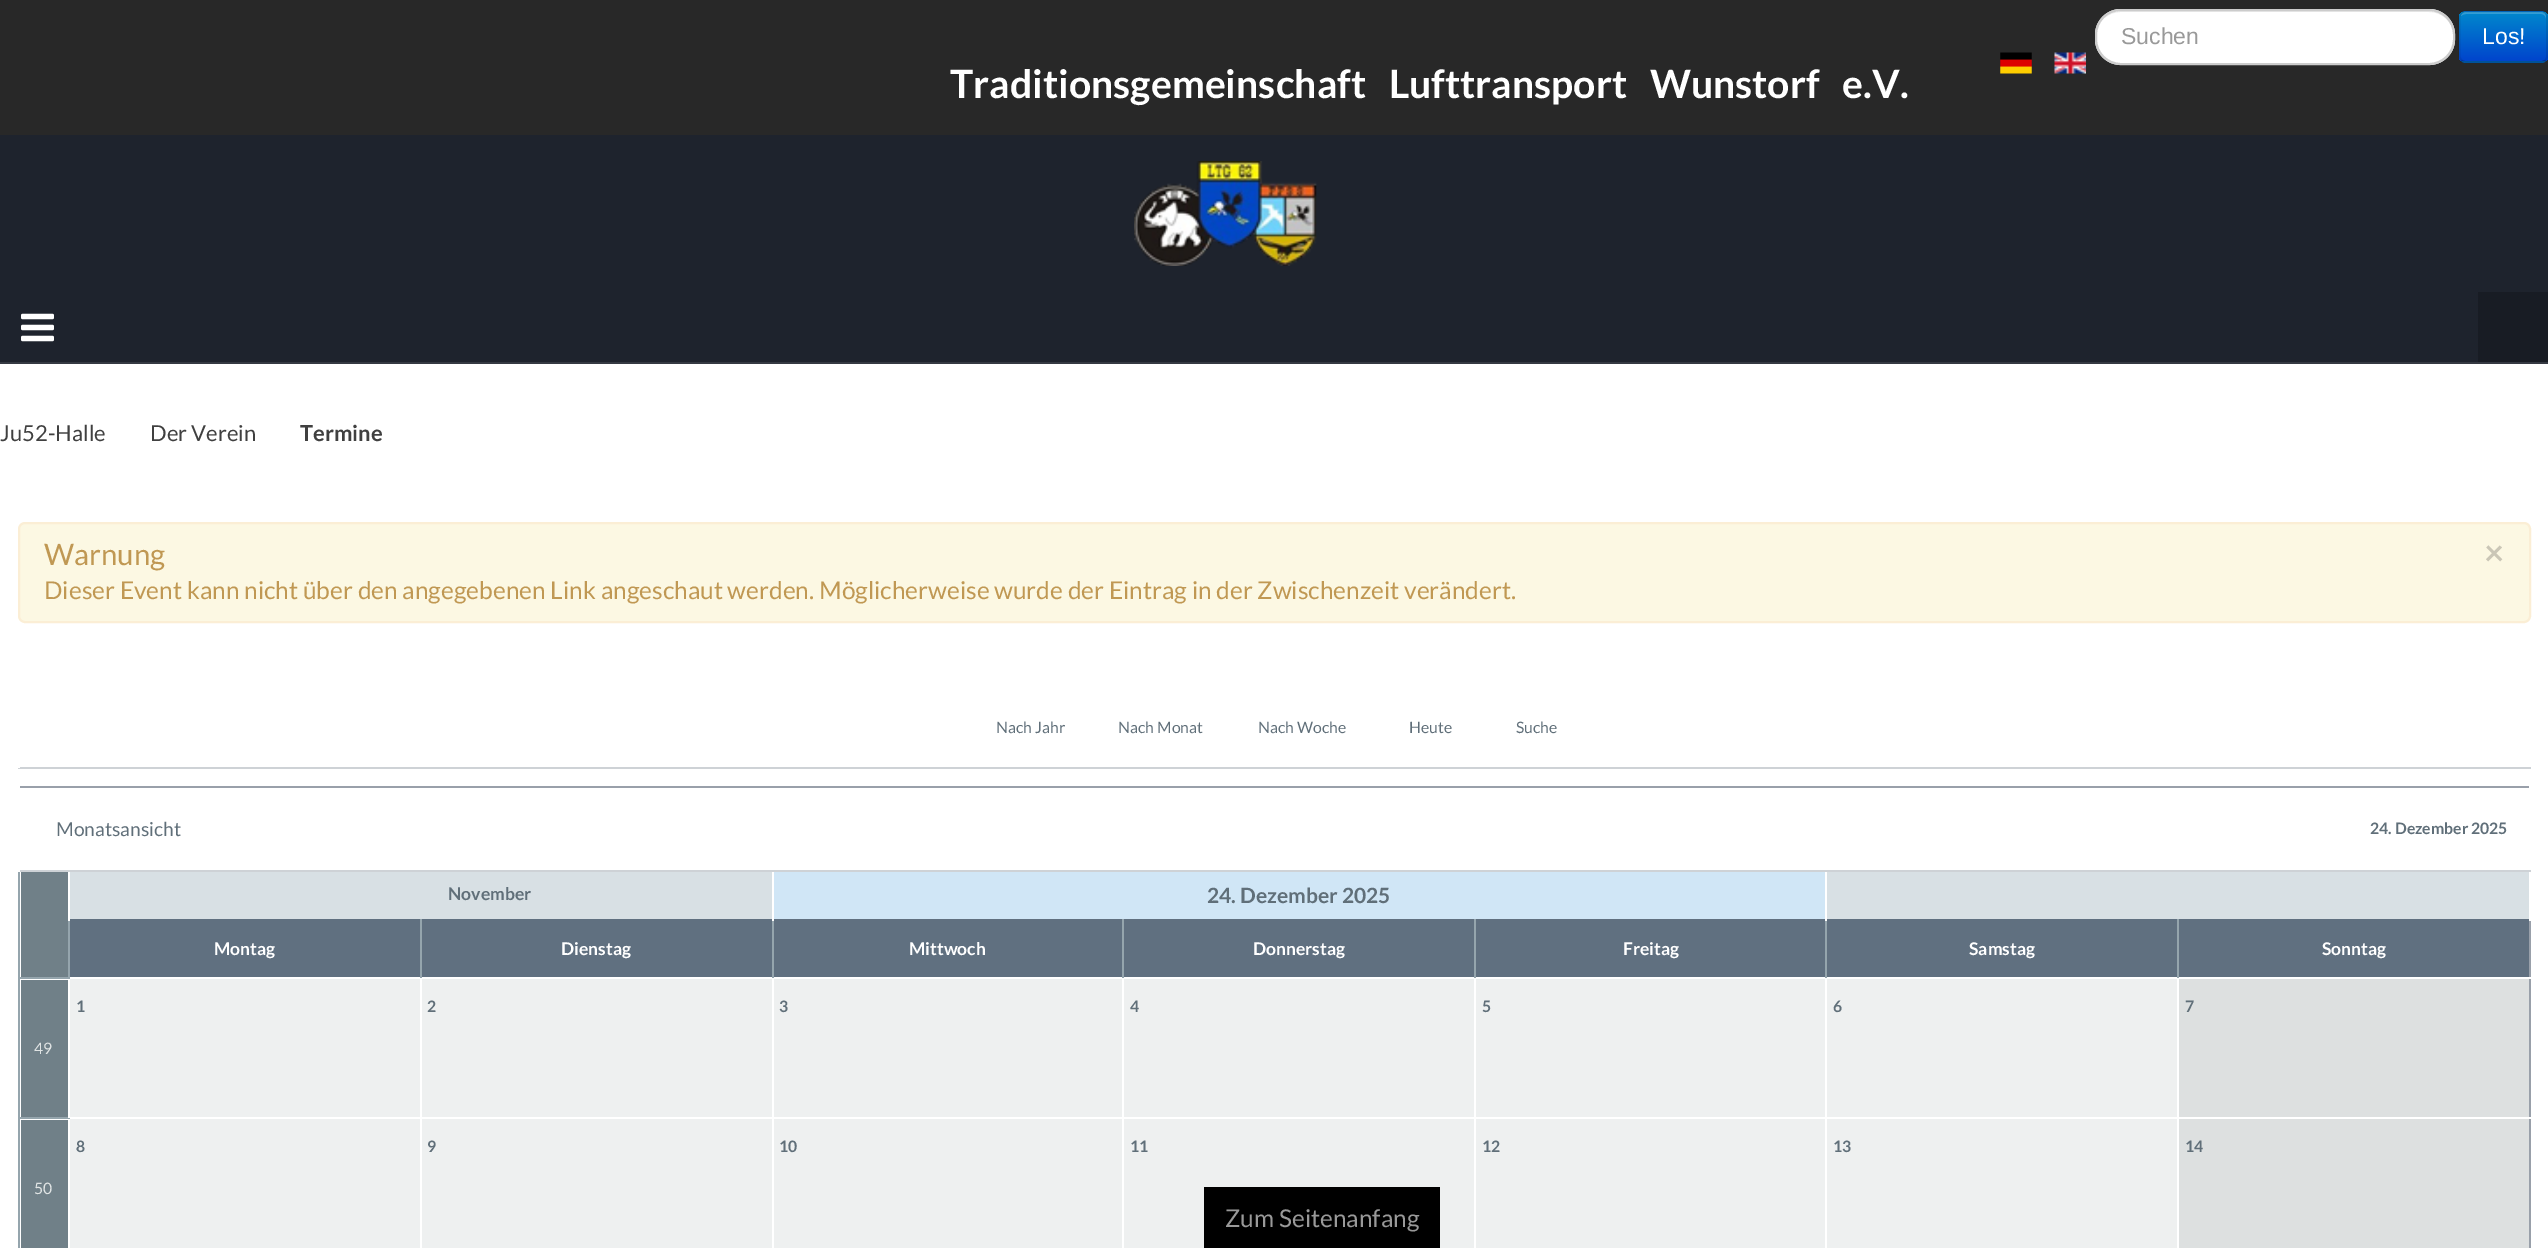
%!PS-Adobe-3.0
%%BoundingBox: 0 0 2548 1248
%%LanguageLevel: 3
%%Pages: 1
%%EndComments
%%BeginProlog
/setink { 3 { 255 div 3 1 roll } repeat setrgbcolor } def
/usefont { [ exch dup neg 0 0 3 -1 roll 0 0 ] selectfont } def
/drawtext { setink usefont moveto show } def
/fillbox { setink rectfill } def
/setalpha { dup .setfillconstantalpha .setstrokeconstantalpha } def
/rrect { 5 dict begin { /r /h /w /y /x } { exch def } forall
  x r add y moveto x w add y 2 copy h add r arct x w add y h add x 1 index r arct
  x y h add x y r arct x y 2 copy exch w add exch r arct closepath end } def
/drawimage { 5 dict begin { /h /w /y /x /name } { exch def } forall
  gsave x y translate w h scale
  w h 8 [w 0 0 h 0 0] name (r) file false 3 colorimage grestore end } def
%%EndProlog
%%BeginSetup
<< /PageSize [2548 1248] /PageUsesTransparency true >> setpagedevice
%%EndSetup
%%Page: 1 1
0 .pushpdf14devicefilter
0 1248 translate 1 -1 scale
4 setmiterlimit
0 0 2548 1248 255 255 255 fillbox
0 0 2548 135 40 40 40 fillbox
255 255 255 setink
2095 9 360 56 26 rrect fill
236 236 236 setink
2121 12 moveto 2429 12 lineto 2443 12 2454 23 2454 37 curveto 2454 36 lineto 2454 22 2443 11 2429 11 curveto 2122 11 lineto 2115 11 2110 13 2105 18 curveto 2109 14 2115 12 2121 12 curveto closepath fill
204 204 204 setink
2 setlinewidth
2096 10 358 54 25 rrect stroke
(Suchen) 2121 44 /LiberationSans-Regular 23 153 153 153 drawtext
0 109 204 setink
2459 11 89 52 7 rrect fill
gsave
2459 11 89 52 7 rrect clip newpath
gsave 2459 12 moveto 2548 12 lineto 2548 61 lineto 2459 61 lineto closepath clip newpath
<< /ShadingType 2 /ColorSpace /DeviceRGB /Coords [2503 12 2503 61] /Extend [true true] /Function << /FunctionType 2 /Domain [0 1] /C0 [0 0.533 0.8] /C1 [0 0.267 0.8] /N 1 >> >> shfill grestore
grestore
0.2 setalpha
255 255 255 setink
2466 14 moveto 2541 14 lineto 2544 14 2546 16 2546 19 curveto 2546 17 lineto 2546 14 2544 12 2541 12 curveto 2466 12 lineto 2464 12 2461 14 2461 16 curveto 2462 15 2464 14 2466 14 curveto closepath fill
0.25 setalpha
0 0 0 setink
1.8 setlinewidth
2545.5 60.5 moveto 2544 61.5 2542.5 62 2541 62 curveto 2466 62 lineto 2464 62 2462.5 61.5 2461.5 60.5 curveto stroke
0.1 setalpha
2461.5 60.5 moveto 2460.5 59 2459.5 57.5 2459.5 56 curveto 2459.5 17.5 lineto 2459.5 16 2460.5 14.5 2461.5 13 curveto 2462.5 12 2464 11.5 2466 11.5 curveto 2541 11.5 lineto 2542.5 11.5 2544 12 2545.5 13 curveto 2546.5 14.5 2547 16 2547 17.5 curveto 2547 56 lineto 2547 57.5 2546.5 59 2545.5 60.5 curveto stroke
1 setalpha
(Los!) 2482 44 /LiberationSans-Regular 23 255 255 255 drawtext
(assets/img1.rgb) 2000 52 32 22 drawimage
(assets/img2.rgb) 2054 52 32 22 drawimage
(Traditionsgemeinschaft   Lufttransport   Wunstorf   e.V.) 950 98 /Lato-Bold 39.2 255 255 255 drawtext
0 135 2548 227 30 35 45 fillbox
0 362 2548 2 53 57 66 fillbox
(assets/img3.rgb) 1134 161 183 105 drawimage
(assets/img4.rgb) 21 313 33 29 drawimage
2478 292 70 70 24 28 36 fillbox
(Ju52-Halle) 0 441 /Lato-Regular 22 64 64 64 drawtext
(Der Verein) 150 441 /Lato-Regular 22 64 64 64 drawtext
(Termine) 300 441 /Lato-Bold 22 64 64 64 drawtext
252 248 227 setink
19 523 2511 99 6 rrect gsave fill grestore
251 238 213 setink
2 setlinewidth
stroke
(Warnung) 44 565 /Lato-Regular 29.5 192 152 83 drawtext
(×) 2484 565 /Lato-Bold 35 202 198 182 drawtext
(Dieser Event kann nicht über den angegebenen Link angeschaut werden. Möglicherweise wurde der Eintrag in der Zwischenzeit verändert.) 44 599 /Lato-Regular 24.5 192 152 83 drawtext
18 767 2513 2 206 210 214 fillbox
18 767 2 1 255 255 255 fillbox
(Nach Jahr) 996 733 /Lato-Regular 15.75 96 111 121 drawtext
(Nach Monat) 1118 733 /Lato-Regular 15.75 96 111 121 drawtext
(Nach Woche) 1258 733 /Lato-Regular 15.75 96 111 121 drawtext
(Heute) 1409 733 /Lato-Regular 15.75 96 111 121 drawtext
(Suche) 1516 733 /Lato-Regular 15.75 96 111 121 drawtext
18 786 2513 2 153 160 170 fillbox
2529 921 2 327 153 160 170 fillbox
2529 786 2 2 255 255 255 fillbox
18 977 52 2 149 165 173 fillbox
18 1117 52 2 149 165 173 fillbox
18 1117 2 131 149 165 173 fillbox
18 870 2 248 149 165 173 fillbox
18 870 2513 2 206 210 214 fillbox
18 786 2 86 255 255 255 fillbox
(Monatsansicht) 56 836 /Lato-Regular 19.25 96 111 121 drawtext
(24. Dezember 2025) 2370 834 /Lato-Bold 15.75 96 111 121 drawtext
21 872 47 105 112 128 136 fillbox
70 872 702 47 216 224 228 fillbox
68 919 2 59 149 165 173 fillbox
68 919 2 2 255 255 255 fillbox
(November) 448 900 /Lato-Bold 17.5 96 111 121 drawtext
774 872 1051 47 208 230 246 fillbox
772 919 2 59 149 165 173 fillbox
772 919 2 2 255 255 255 fillbox
(24. Dezember 2025) 1207 903 /Lato-Bold 21 96 111 121 drawtext
1827 872 702 47 216 224 228 fillbox
1825 919 2 59 149 165 173 fillbox
1825 919 2 2 255 255 255 fillbox
70 919 350 58 96 112 128 fillbox
(Montag) 214 955 /Lato-Bold 17.5 255 255 255 drawtext
422 919 350 58 96 112 128 fillbox
420 919 2 59 149 165 173 fillbox
(Dienstag) 561 955 /Lato-Bold 17.5 255 255 255 drawtext
774 919 348 58 96 112 128 fillbox
(Mittwoch) 909 955 /Lato-Bold 17.5 255 255 255 drawtext
1124 919 350 58 96 112 128 fillbox
1122 919 2 59 149 165 173 fillbox
(Donnerstag) 1253 955 /Lato-Bold 17.5 255 255 255 drawtext
1476 919 349 58 96 112 128 fillbox
1474 919 2 59 149 165 173 fillbox
(Freitag) 1623 955 /Lato-Bold 17.5 255 255 255 drawtext
1827 919 350 58 96 112 128 fillbox
(Samstag) 1969 955 /Lato-Bold 17.5 255 255 255 drawtext
2179 919 350 58 96 112 128 fillbox
2177 919 2 59 149 165 173 fillbox
(Sonntag) 2322 955 /Lato-Bold 17.5 255 255 255 drawtext
70 979 350 138 238 240 240 fillbox
68 1117 2 1 255 255 255 fillbox
(1) 76 1012 /Lato-Bold 15.75 96 111 121 drawtext
422 979 350 138 238 240 240 fillbox
(2) 427 1012 /Lato-Bold 15.75 96 111 121 drawtext
774 979 348 138 238 240 240 fillbox
(3) 779 1012 /Lato-Bold 15.75 96 111 121 drawtext
1124 979 350 138 238 240 240 fillbox
(4) 1130 1012 /Lato-Bold 15.75 96 111 121 drawtext
1476 979 349 138 238 240 240 fillbox
(5) 1482 1012 /Lato-Bold 15.75 96 111 121 drawtext
1827 979 350 138 238 240 240 fillbox
(6) 1833 1012 /Lato-Bold 15.75 96 111 121 drawtext
2179 979 350 138 221 224 224 fillbox
2529 977 2 2 255 255 255 fillbox
(7) 2185 1012 /Lato-Bold 15.75 96 111 121 drawtext
21 980 47 137 112 128 136 fillbox
(49) 34 1054 /Lato-Regular 15.75 224 228 228 drawtext
70 1119 350 129 238 240 240 fillbox
(8) 76 1152 /Lato-Bold 15.75 96 111 121 drawtext
422 1119 350 129 238 240 240 fillbox
(9) 427 1152 /Lato-Bold 15.75 96 111 121 drawtext
774 1119 348 129 238 240 240 fillbox
(10) 779 1152 /Lato-Bold 15.75 96 111 121 drawtext
1124 1119 350 129 238 240 240 fillbox
(11) 1130 1152 /Lato-Bold 15.75 96 111 121 drawtext
1476 1119 349 129 238 240 240 fillbox
(12) 1482 1152 /Lato-Bold 15.75 96 111 121 drawtext
1827 1119 350 129 238 240 240 fillbox
(13) 1833 1152 /Lato-Bold 15.75 96 111 121 drawtext
2179 1119 350 129 221 224 224 fillbox
2529 1117 2 2 255 255 255 fillbox
(14) 2185 1152 /Lato-Bold 15.75 96 111 121 drawtext
21 1120 47 128 112 128 136 fillbox
(50) 34 1194 /Lato-Regular 15.75 224 228 228 drawtext
1204 1187 236 61 0 0 0 fillbox
(Zum Seitenanfang) 1225 1227 /Lato-Regular 24.5 153 153 153 drawtext
.poppdf14devicefilter showpage
%%EOF
